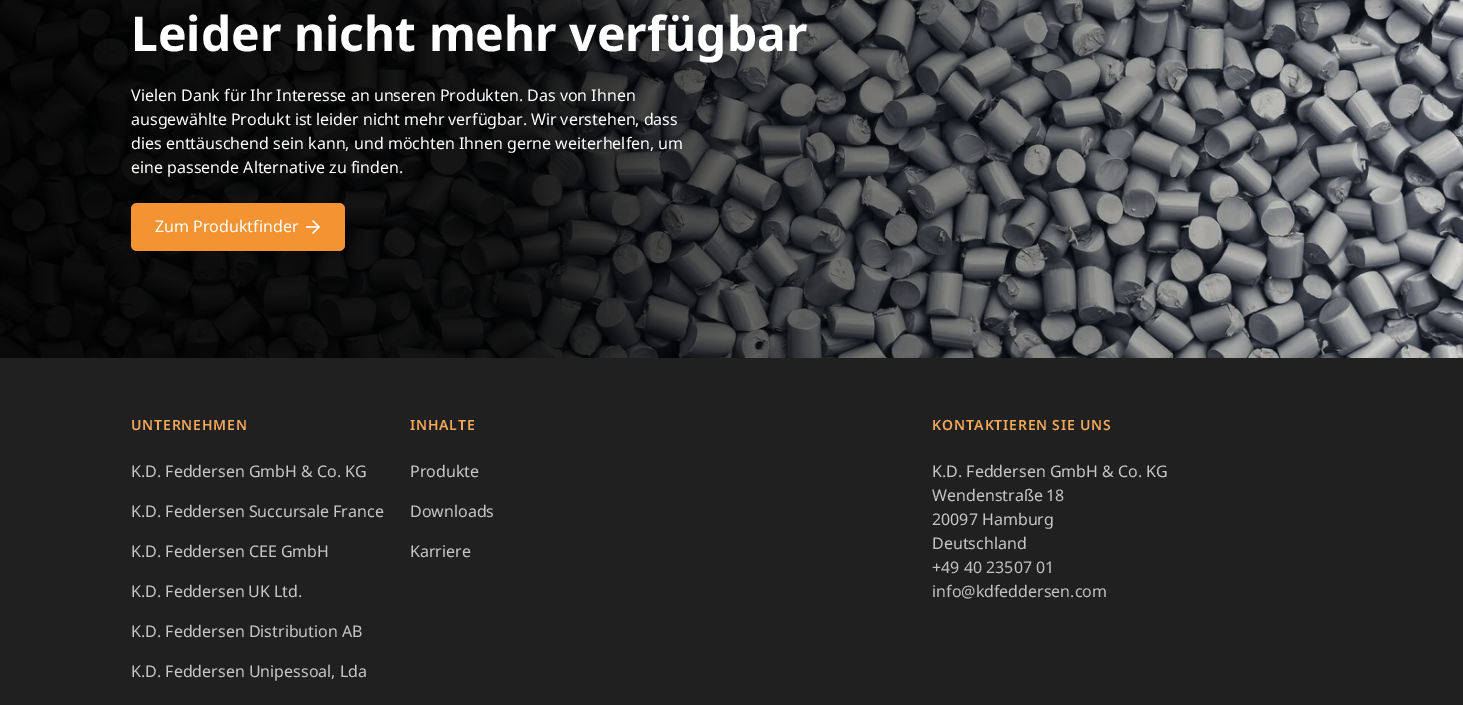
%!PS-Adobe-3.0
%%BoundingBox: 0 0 1463 705
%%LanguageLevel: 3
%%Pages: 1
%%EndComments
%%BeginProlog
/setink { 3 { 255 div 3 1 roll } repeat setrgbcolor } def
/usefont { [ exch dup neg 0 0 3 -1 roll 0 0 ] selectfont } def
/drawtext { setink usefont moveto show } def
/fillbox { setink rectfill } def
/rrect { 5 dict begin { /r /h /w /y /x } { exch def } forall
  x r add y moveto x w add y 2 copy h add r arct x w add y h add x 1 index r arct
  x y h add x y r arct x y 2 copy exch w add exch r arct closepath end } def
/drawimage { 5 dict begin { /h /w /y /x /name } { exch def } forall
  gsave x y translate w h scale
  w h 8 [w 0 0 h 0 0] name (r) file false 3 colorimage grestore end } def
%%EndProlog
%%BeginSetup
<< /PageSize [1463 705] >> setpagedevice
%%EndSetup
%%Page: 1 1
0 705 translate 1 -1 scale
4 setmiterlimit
0 0 1463 705 32 32 32 fillbox
(assets/img1.rgb) 0 0 1463 358 drawimage
(Leider nicht mehr verfügbar) 131 51 /NotoSans-Bold 48 255 255 255 drawtext
(Vielen Dank für Ihr Interesse an unseren Produkten. Das von Ihnen) 131 101 /NotoSans-Regular 16 255 255 255 drawtext
131 125 moveto -0.25 0 32 (ausgewählte Produkt ist leider nicht mehr verfügbar. Wir verstehen, dass) widthshow
(dies enttäuschend sein kann, und möchten Ihnen gerne weiterhelfen, um) 131 149 /NotoSans-Regular 16 255 255 255 drawtext
(eine passende Alternative zu finden.) 131 173 /NotoSans-Regular 16 255 255 255 drawtext
243 147 50 setink
131 203 214 48 6 rrect fill
(Zum Produktfinder) 155 232 /NotoSans-Regular 16 255 255 255 drawtext
(assets/img2.rgb) 306 220 14 14 drawimage
/NotoSans-SemiBold 14 usefont
245 169 91 setink
131 430 moveto 0.8 0 (UNTERNEHMEN) ashow
(K.D. Feddersen GmbH & Co. KG) 131 477 /NotoSans-Regular 16 199 199 199 drawtext
(K.D. Feddersen Succursale France) 131 517 /NotoSans-Regular 16 199 199 199 drawtext
(K.D. Feddersen CEE GmbH) 131 557 /NotoSans-Regular 16 199 199 199 drawtext
(K.D. Feddersen) 131 597 /NotoSans-Regular 16 199 199 199 drawtext
(UK Ltd.) 248 597 /NotoSans-Regular 16 199 199 199 drawtext
(K.D. Feddersen Distribution AB) 131 637 /NotoSans-Regular 16 199 199 199 drawtext
(K.D. Feddersen Unipessoal, Lda) 131 677 /NotoSans-Regular 16 199 199 199 drawtext
/NotoSans-SemiBold 14 usefont
245 169 91 setink
410 430 moveto 0.8 0 (INHALTE) ashow
(Produkte) 410 477 /NotoSans-Regular 16 199 199 199 drawtext
(Downloads) 410 517 /NotoSans-Regular 16 199 199 199 drawtext
(Karriere) 410 557 /NotoSans-Regular 16 199 199 199 drawtext
/NotoSans-SemiBold 14 usefont
245 169 91 setink
932 430 moveto 0.8 0 (KONTAKTIEREN SIE UNS) ashow
(K.D. Feddersen GmbH & Co. KG) 932 477 /NotoSans-Regular 16 199 199 199 drawtext
932 501 moveto -1 0 32 (Wendenstraße 18) widthshow
(20097 Hamburg) 932 525 /NotoSans-Regular 16 199 199 199 drawtext
(Deutschland) 932 549 /NotoSans-Regular 16 199 199 199 drawtext
(+49 40 23507 01) 932 573 /NotoSans-Regular 16 193 193 193 drawtext
(info@kdfeddersen.com) 932 597 /NotoSans-Regular 16 193 193 193 drawtext
showpage
%%EOF
